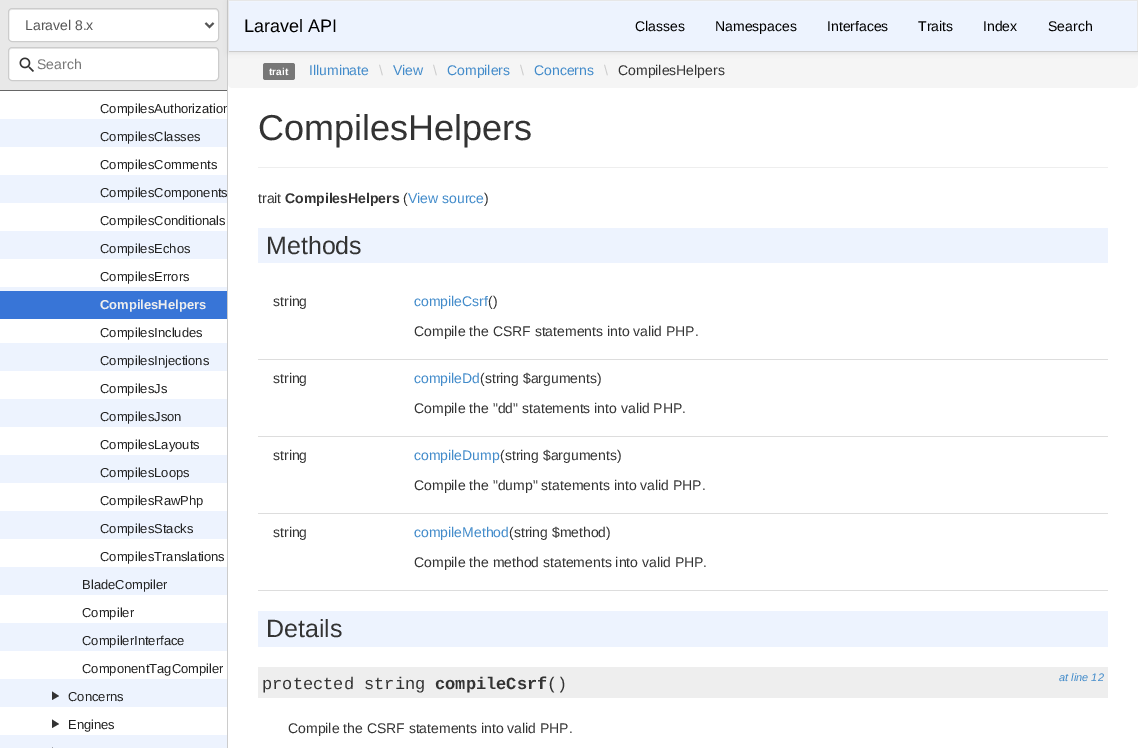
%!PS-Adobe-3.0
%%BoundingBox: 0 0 1138 748
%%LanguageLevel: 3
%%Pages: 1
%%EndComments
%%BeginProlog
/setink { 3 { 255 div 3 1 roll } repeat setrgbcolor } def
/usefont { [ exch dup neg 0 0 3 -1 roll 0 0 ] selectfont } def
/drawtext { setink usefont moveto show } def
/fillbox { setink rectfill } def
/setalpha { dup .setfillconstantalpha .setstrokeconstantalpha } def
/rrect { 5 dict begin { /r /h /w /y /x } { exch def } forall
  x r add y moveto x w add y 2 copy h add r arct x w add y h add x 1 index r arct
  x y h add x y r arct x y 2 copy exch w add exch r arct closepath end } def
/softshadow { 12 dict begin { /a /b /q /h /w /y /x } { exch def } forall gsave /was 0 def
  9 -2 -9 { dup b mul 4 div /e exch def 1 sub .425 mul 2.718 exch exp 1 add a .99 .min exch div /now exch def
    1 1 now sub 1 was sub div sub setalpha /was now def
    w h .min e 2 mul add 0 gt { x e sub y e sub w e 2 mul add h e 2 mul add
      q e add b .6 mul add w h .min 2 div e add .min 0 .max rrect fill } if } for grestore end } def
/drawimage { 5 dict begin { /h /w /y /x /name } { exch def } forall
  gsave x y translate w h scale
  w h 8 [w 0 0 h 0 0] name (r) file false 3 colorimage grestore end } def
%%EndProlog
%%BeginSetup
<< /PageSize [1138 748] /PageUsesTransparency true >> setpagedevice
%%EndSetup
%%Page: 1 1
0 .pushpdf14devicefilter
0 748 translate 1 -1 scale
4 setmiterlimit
0 0 1138 748 255 255 255 fillbox
227 0 1 748 204 204 204 fillbox
0 0 227 90 232 232 232 fillbox
0 90 227 1 102 102 102 fillbox
255 255 255 setink
8 8 211 34 4 rrect fill
236 236 236 setink
12 10 moveto 215 10 lineto 217 10 218 11 218 13 curveto 218 12 lineto 218 10 217 9 215 9 curveto 12 9 lineto 10 9 9 10 9 12 curveto 9 13 lineto 9 11 10 10 12 10 curveto closepath fill
204 204 204 setink
8.5 8.5 210 33 3.5 rrect stroke
85 85 85 setink
2 setlinewidth
205.5 23 moveto 209.5 27 lineto 213.5 23 lineto stroke
(Laravel 8.x) 25 30 /LiberationSans-Regular 14 85 85 85 drawtext
255 255 255 setink
8 47 211 34 4 rrect fill
236 236 236 setink
12 49 moveto 215 49 lineto 217 49 218 50 218 52 curveto 218 51 lineto 218 49 217 48 215 48 curveto 12 48 lineto 10 48 9 49 9 51 curveto 9 52 lineto 9 50 10 49 12 49 curveto closepath fill
204 204 204 setink
1 setlinewidth
8.5 47.5 210 33 3.5 rrect stroke
(assets/img1.rgb) 19 57 15 15 drawimage
(Search) 37 69 /LiberationSans-Regular 14 119 119 119 drawtext
(assets/img2.rgb) 0 119 227 629 drawimage
gsave
0 91 227 657 rectclip
(CompilesAuthorization) 100 113 /LiberationSans-Regular 13 34 34 34 drawtext
grestore
(CompilesClasses) 100 141 /LiberationSans-Regular 13 34 34 34 drawtext
(CompilesComments) 100 169 /LiberationSans-Regular 13 34 34 34 drawtext
gsave
0 91 227 657 rectclip
(CompilesComponents) 100 197 /LiberationSans-Regular 13 34 34 34 drawtext
grestore
(CompilesConditionals) 100 225 /LiberationSans-Regular 13 34 34 34 drawtext
(CompilesEchos) 100 253 /LiberationSans-Regular 13 34 34 34 drawtext
(CompilesErrors) 100 281 /LiberationSans-Regular 13 34 34 34 drawtext
0 291 227 28 56 117 215 fillbox
(CompilesHelpers) 100 309 /LiberationSans-Bold 13 238 238 238 drawtext
(CompilesIncludes) 100 337 /LiberationSans-Regular 13 34 34 34 drawtext
(CompilesInjections) 100 365 /LiberationSans-Regular 13 34 34 34 drawtext
(CompilesJs) 100 393 /LiberationSans-Regular 13 34 34 34 drawtext
(CompilesJson) 100 421 /LiberationSans-Regular 13 34 34 34 drawtext
(CompilesLayouts) 100 449 /LiberationSans-Regular 13 34 34 34 drawtext
(CompilesLoops) 100 477 /LiberationSans-Regular 13 34 34 34 drawtext
(CompilesRawPhp) 100 505 /LiberationSans-Regular 13 34 34 34 drawtext
(CompilesStacks) 100 533 /LiberationSans-Regular 13 34 34 34 drawtext
(CompilesTranslations) 100 561 /LiberationSans-Regular 13 34 34 34 drawtext
(BladeCompiler) 82 589 /LiberationSans-Regular 13 34 34 34 drawtext
(Compiler) 82 617 /LiberationSans-Regular 13 34 34 34 drawtext
(CompilerInterface) 82 645 /LiberationSans-Regular 13 34 34 34 drawtext
(ComponentTagCompiler) 82 673 /LiberationSans-Regular 13 34 34 34 drawtext
51 51 51 setink
52 691.5 moveto 52 700 lineto 59 696 lineto closepath fill
(Concerns) 68 701 /LiberationSans-Regular 13 34 34 34 drawtext
51 51 51 setink
52 719.5 moveto 52 728 lineto 59 724 lineto closepath fill
(Engines) 68 729 /LiberationSans-Regular 13 34 34 34 drawtext
51 51 51 setink
52 747.5 moveto 52 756 lineto 59 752 lineto closepath fill
245 245 245 setink
228 52 moveto 1138 52 lineto 1138 84 lineto 1138 86 1136 88 1134 88 curveto 232 88 lineto 230 88 228 86 228 84 curveto closepath fill
0 0 0 setink
228 1 910 52 0 2.5 0.07 softshadow
229 2 908 49 237 243 254 fillbox
229 1 908 1 240 245 254 fillbox
228 0 910 1 231 231 231 fillbox
1137 0 1 52 231 231 231 fillbox
228 51 910 1 204 204 204 fillbox
228 0 1 52 231 231 231 fillbox
(Laravel API) 244 32 /LiberationSans-Regular 18 0 0 0 drawtext
(Classes) 635 31 /LiberationSans-Regular 14 0 0 0 drawtext
(Namespaces) 715 31 /LiberationSans-Regular 14 0 0 0 drawtext
(Interfaces) 827 31 /LiberationSans-Regular 14 0 0 0 drawtext
(Traits) 918 31 /LiberationSans-Regular 14 0 0 0 drawtext
(Index) 983 31 /LiberationSans-Regular 14 0 0 0 drawtext
(Search) 1048 31 /LiberationSans-Regular 14 0 0 0 drawtext
119 119 119 setink
263 63 32 17 2.5 rrect fill
(trait) 269 75 /LiberationSans-Bold 10 255 255 255 drawtext
(Illuminate) 309 75 /LiberationSans-Regular 14 66 139 202 drawtext
(\\) 379 75 /LiberationSans-Regular 14 204 204 204 drawtext
(View) 393 75 /LiberationSans-Regular 14 66 139 202 drawtext
(\\) 433 75 /LiberationSans-Regular 14 204 204 204 drawtext
(Compilers) 447 75 /LiberationSans-Regular 14 66 139 202 drawtext
(\\) 520 75 /LiberationSans-Regular 14 204 204 204 drawtext
(Concerns) 534 75 /LiberationSans-Regular 14 66 139 202 drawtext
(\\) 604 75 /LiberationSans-Regular 14 204 204 204 drawtext
(CompilesHelpers) 618 75 /LiberationSans-Regular 14 51 51 51 drawtext
258 167 850 1 238 238 238 fillbox
(CompilesHelpers) 258 140 /LiberationSans-Regular 36 51 51 51 drawtext
(trait) 258 203 /LiberationSans-Regular 14 51 51 51 drawtext
(CompilesHelpers) 285 203 /LiberationSans-Bold 14 51 51 51 drawtext
(\() 403 203 /LiberationSans-Regular 14 51 51 51 drawtext
(View source) 408 203 /LiberationSans-Regular 14 66 139 202 drawtext
(\)) 484 203 /LiberationSans-Regular 14 51 51 51 drawtext
258 228 850 35 237 243 254 fillbox
(Methods) 266 254 /LiberationSans-Regular 25 51 51 51 drawtext
258 359 850 1 221 221 221 fillbox
(string) 273 306 /LiberationSans-Regular 14 51 51 51 drawtext
(compileCsrf) 414 306 /LiberationSans-Regular 14 66 139 202 drawtext
(\(\)) 488 306 /LiberationSans-Regular 14 51 51 51 drawtext
(Compile the CSRF statements into valid PHP.) 414 336 /LiberationSans-Regular 14 51 51 51 drawtext
258 436 850 1 221 221 221 fillbox
(string) 273 383 /LiberationSans-Regular 14 51 51 51 drawtext
(compileDd) 414 383 /LiberationSans-Regular 14 66 139 202 drawtext
(\(string $arguments\)) 480 383 /LiberationSans-Regular 14 51 51 51 drawtext
(Compile the "dd" statements into valid PHP.) 414 413 /LiberationSans-Regular 14 51 51 51 drawtext
258 513 850 1 221 221 221 fillbox
(string) 273 460 /LiberationSans-Regular 14 51 51 51 drawtext
(compileDump) 414 460 /LiberationSans-Regular 14 66 139 202 drawtext
(\(string $arguments\)) 500 460 /LiberationSans-Regular 14 51 51 51 drawtext
(Compile the "dump" statements into valid PHP.) 414 490 /LiberationSans-Regular 14 51 51 51 drawtext
258 590 850 1 221 221 221 fillbox
(string) 273 537 /LiberationSans-Regular 14 51 51 51 drawtext
(compileMethod) 414 537 /LiberationSans-Regular 14 66 139 202 drawtext
(\(string $method\)) 509 537 /LiberationSans-Regular 14 51 51 51 drawtext
(Compile the method statements into valid PHP.) 414 567 /LiberationSans-Regular 14 51 51 51 drawtext
258 611 850 36 237 243 254 fillbox
(Details) 266 637 /LiberationSans-Regular 25 51 51 51 drawtext
258 667 850 31 238 238 238 fillbox
(protected string) 262 689 /LiberationMono-Regular 17 51 51 51 drawtext
(compileCsrf) 435 689 /LiberationMono-Bold 17 51 51 51 drawtext
(\(\)) 547 689 /LiberationMono-Regular 17 51 51 51 drawtext
(at line 12) 1059 681 /LiberationSans-Italic 11 66 139 202 drawtext
(Compile the CSRF statements into valid PHP.) 288 733 /LiberationSans-Regular 14 51 51 51 drawtext
.poppdf14devicefilter showpage
%%EOF
